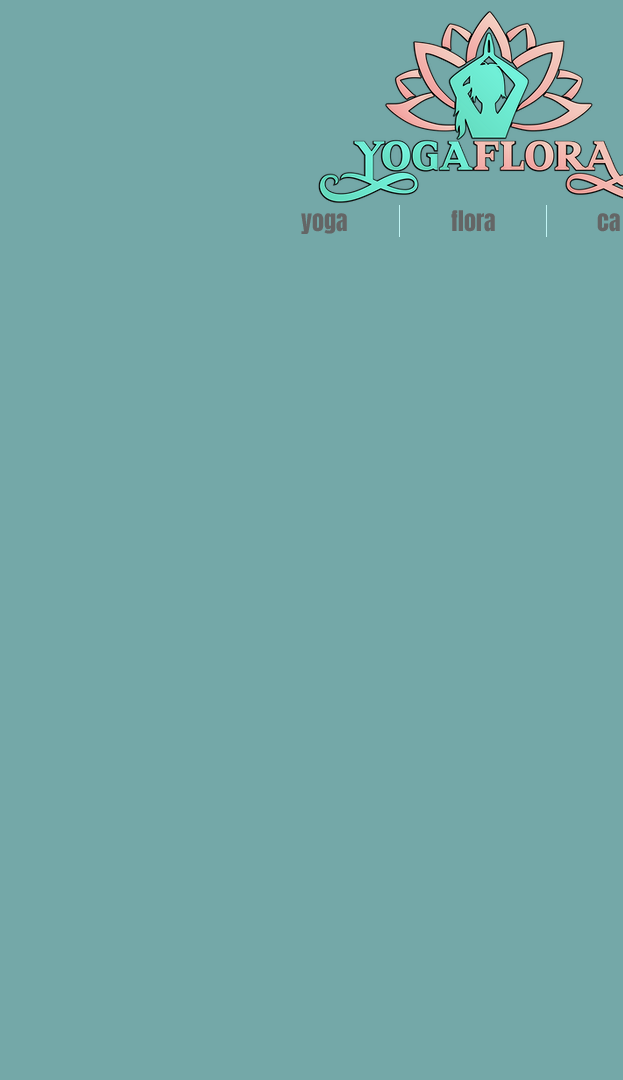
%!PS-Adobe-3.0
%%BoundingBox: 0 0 623 1080
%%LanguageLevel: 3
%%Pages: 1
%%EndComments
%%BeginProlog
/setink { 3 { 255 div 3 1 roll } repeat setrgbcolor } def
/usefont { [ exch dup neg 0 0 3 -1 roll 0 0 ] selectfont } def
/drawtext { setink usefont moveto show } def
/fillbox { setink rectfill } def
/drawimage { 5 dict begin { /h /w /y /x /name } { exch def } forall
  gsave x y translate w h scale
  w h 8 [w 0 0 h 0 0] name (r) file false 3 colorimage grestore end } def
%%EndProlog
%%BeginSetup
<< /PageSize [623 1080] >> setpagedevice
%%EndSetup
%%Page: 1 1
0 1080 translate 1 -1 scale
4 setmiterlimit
0 0 623 1080 116 168 168 fillbox
(assets/img1.rgb) 318 11 305 192 drawimage
(yoga) 301 231 /Anton-Regular 24 100 102 102 drawtext
399 205 1 32 193 245 245 fillbox
(flora) 451 231 /Anton-Regular 24 100 102 102 drawtext
546 205 1 32 193 245 245 fillbox
(ca) 597 231 /Anton-Regular 24 100 102 102 drawtext
showpage
%%EOF
